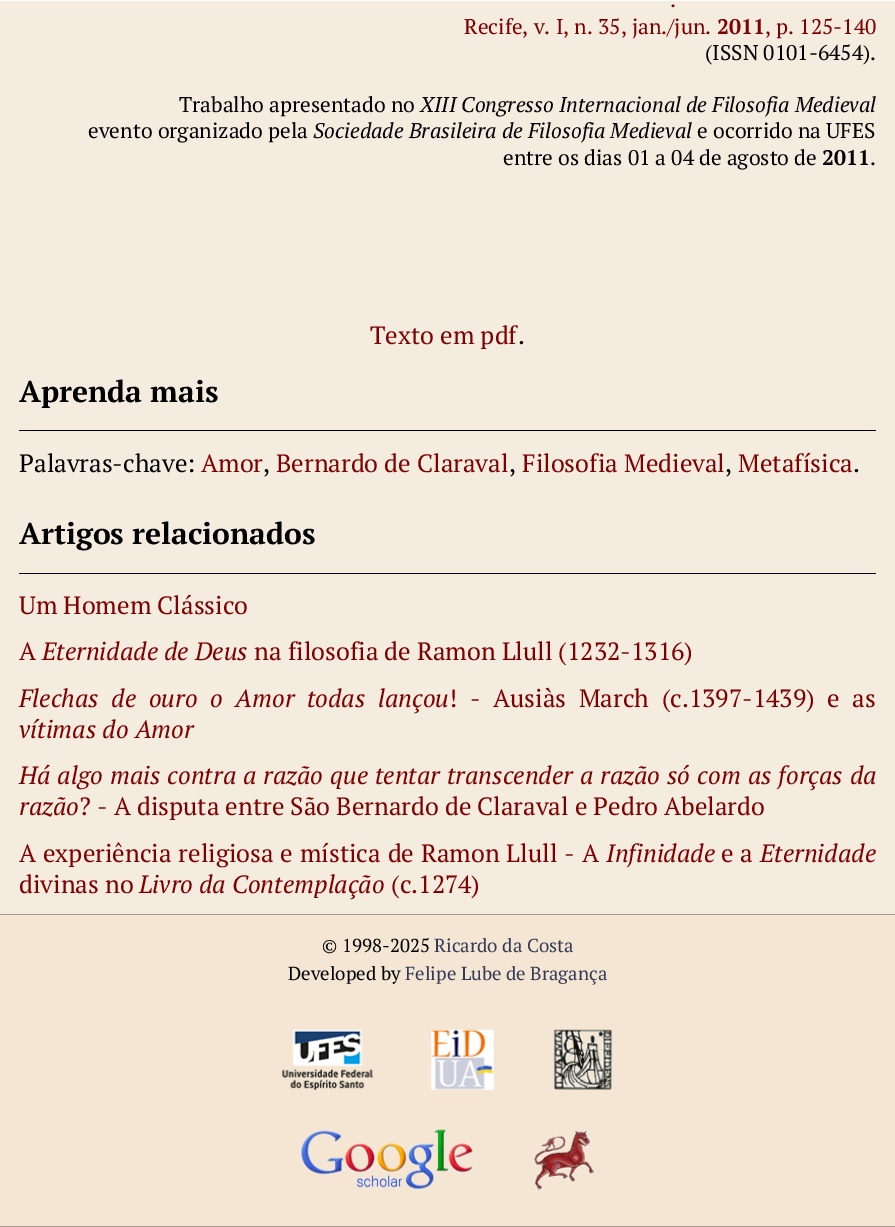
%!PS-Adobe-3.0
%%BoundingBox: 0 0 895 1227
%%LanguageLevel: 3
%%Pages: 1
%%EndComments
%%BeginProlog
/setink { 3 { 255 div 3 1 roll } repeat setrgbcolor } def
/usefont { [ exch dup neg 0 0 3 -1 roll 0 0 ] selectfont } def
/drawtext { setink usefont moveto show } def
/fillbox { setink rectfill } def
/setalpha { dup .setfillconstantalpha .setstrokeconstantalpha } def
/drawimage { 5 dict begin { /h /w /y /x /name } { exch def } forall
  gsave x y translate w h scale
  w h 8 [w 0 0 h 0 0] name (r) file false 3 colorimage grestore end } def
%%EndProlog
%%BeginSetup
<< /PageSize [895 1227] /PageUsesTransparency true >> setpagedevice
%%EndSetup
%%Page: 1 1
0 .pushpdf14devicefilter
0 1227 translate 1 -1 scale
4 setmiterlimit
0 0 895 1227 245 236 224 fillbox
0.95 setalpha
0 0 895 1 255 255 255 fillbox
1 setalpha
(.) 671 7 /PTSerif-Italic 21.25 128 0 0 drawtext
(Recife, v. I, n. 35, jan./jun.) 464 34 /PTSerif-Regular 21.25 128 0 0 drawtext
(2011) 717 34 /PTSerif-Bold 21.25 128 0 0 drawtext
(, p. 125-140) 765 34 /PTSerif-Regular 21.25 128 0 0 drawtext
(\(ISSN 0101-6454\).) 705 60 /PTSerif-Regular 21.25 0 0 0 drawtext
(Trabalho apresentado no) 179 112 /PTSerif-Regular 21.25 0 0 0 drawtext
(XIII Congresso Internacional de Filosofia Medieval) 420 112 /PTSerif-Italic 21.25 0 0 0 drawtext
(evento organizado pela) 88 138 /PTSerif-Regular 21.25 0 0 0 drawtext
(Sociedade Brasileira de Filosofia Medieval) 313 138 /PTSerif-Italic 21.25 0 0 0 drawtext
(e ocorrido na UFES) 697 138 /PTSerif-Regular 21.25 0 0 0 drawtext
(entre os dias 01 a 04 de agosto de) 503 165 /PTSerif-Regular 21.25 0 0 0 drawtext
(2011) 822 165 /PTSerif-Bold 21.25 0 0 0 drawtext
(.) 870 165 /PTSerif-Regular 21.25 0 0 0 drawtext
(Texto em pdf) 370 344 /PTSerif-Regular 25 128 0 0 drawtext
(.) 518 344 /PTSerif-Regular 25 0 0 0 drawtext
(Aprenda mais) 19 402 /PTSerif-Bold 30 0 0 0 drawtext
19 430 857 1 0 0 0 fillbox
(Palavras-chave:) 19 472 /PTSerif-Regular 25 0 0 0 drawtext
(Amor) 201 472 /PTSerif-Regular 25 128 0 0 drawtext
(,) 263 472 /PTSerif-Regular 25 0 0 0 drawtext
(Bernardo de Claraval) 276 472 /PTSerif-Regular 25 128 0 0 drawtext
(,) 509 472 /PTSerif-Regular 25 0 0 0 drawtext
(Filosofia Medieval) 522 472 /PTSerif-Regular 25 128 0 0 drawtext
(,) 725 472 /PTSerif-Regular 25 0 0 0 drawtext
(Metafísica) 738 472 /PTSerif-Regular 25 128 0 0 drawtext
(.) 853 472 /PTSerif-Regular 25 0 0 0 drawtext
(Artigos relacionados) 19 544 /PTSerif-Bold 30 0 0 0 drawtext
19 573 857 1 0 0 0 fillbox
(Um Homem Clássico) 19 614 /PTSerif-Regular 25 128 0 0 drawtext
(A) 19 660 /PTSerif-Regular 25 128 0 0 drawtext
(Eternidade de Deus) 42 660 /PTSerif-Italic 25 128 0 0 drawtext
(na filosofia de Ramon Llull \(1232-1316\)) 254 660 /PTSerif-Regular 25 128 0 0 drawtext
/PTSerif-Italic 25 usefont
19 707 moveto 6.5 0 32 (Flechas de ouro o Amor todas lançou) widthshow
/PTSerif-Regular 25 usefont
449 707 moveto 6.5 0 32 (! -) widthshow
493 707 moveto 6.5 0 32 (Ausiàs March \(c.1397-1439\) e as) widthshow
(vítimas do Amor) 19 738 /PTSerif-Italic 25 128 0 0 drawtext
19 784 moveto 0.9 0 32 (Há algo mais contra a razão que tentar transcender a razão só com as forças da) widthshow
(razão) 19 815 /PTSerif-Italic 25 128 0 0 drawtext
(? - A disputa entre São Bernardo de Claraval e Pedro Abelardo) 79 815 /PTSerif-Regular 25 128 0 0 drawtext
19 862 moveto 0.75 0 32 (A experiência religiosa e mística de Ramon Llull -) widthshow
(A) 582 862 /PTSerif-Regular 25 128 0 0 drawtext
(Infinidade) 606 862 /PTSerif-Italic 25 128 0 0 drawtext
/PTSerif-Regular 25 usefont
721 862 moveto 0.75 0 32 (e a) widthshow
(Eternidade) 760 862 /PTSerif-Italic 25 128 0 0 drawtext
(divinas no) 19 893 /PTSerif-Regular 25 128 0 0 drawtext
(Livro da Contemplação) 139 893 /PTSerif-Italic 25 128 0 0 drawtext
(\(c.1274\)) 391 893 /PTSerif-Regular 25 128 0 0 drawtext
0 915 895 311 244 230 211 fillbox
0 914 895 1 168 155 137 fillbox
0 1226 895 1 168 155 137 fillbox
(© 1998-2025) 322 952 /PTSerif-Regular 18.75 0 0 0 drawtext
(Ricardo da Costa) 434 952 /PTSerif-Regular 18.75 51 59 89 drawtext
(Developed by) 288 980 /PTSerif-Regular 18.75 0 0 0 drawtext
(Felipe Lube de Bragança) 405 980 /PTSerif-Regular 18.75 51 59 89 drawtext
(assets/img1.rgb) 282 1029 91 61 drawimage
(assets/img2.rgb) 431 1029 63 61 drawimage
(assets/img3.rgb) 552 1029 61 61 drawimage
(assets/img4.rgb) 301 1129 173 61 drawimage
(assets/img5.rgb) 533 1129 61 61 drawimage
.poppdf14devicefilter showpage
%%EOF
